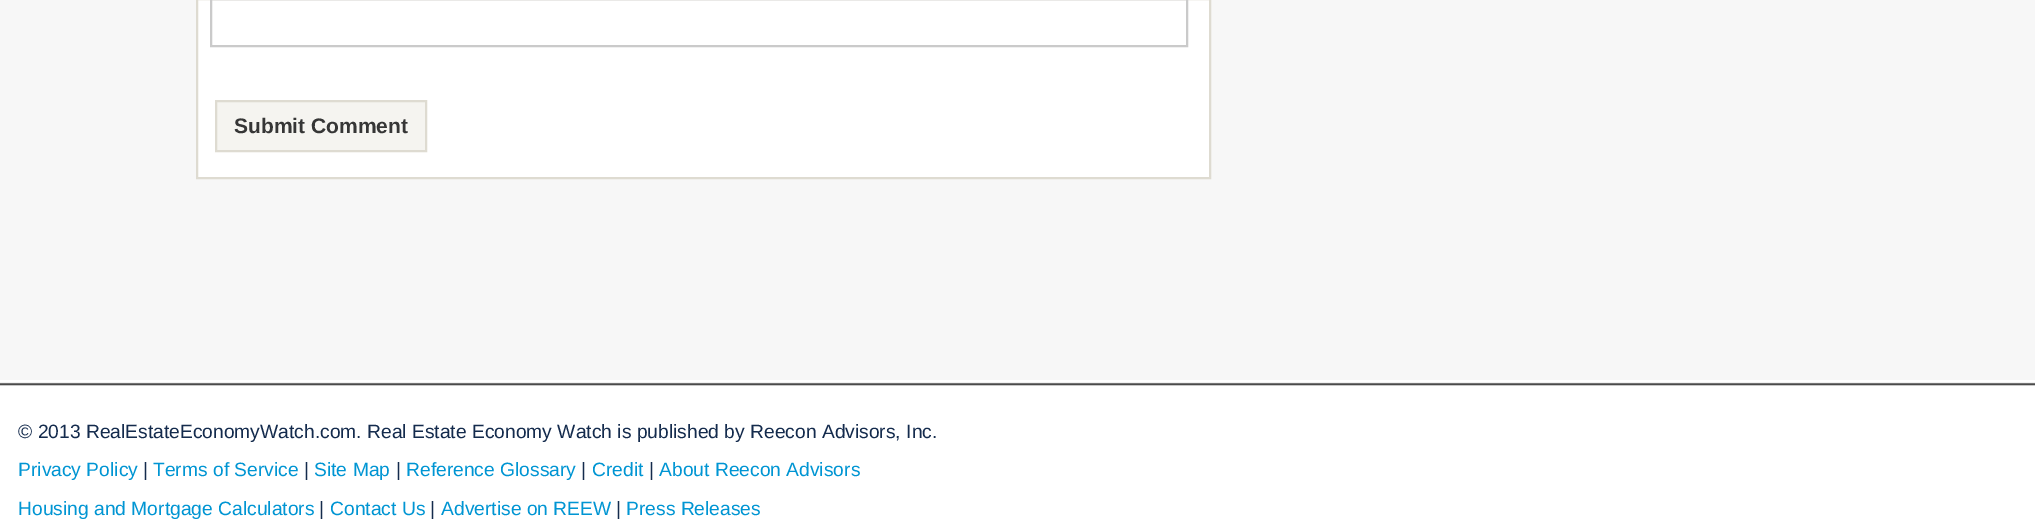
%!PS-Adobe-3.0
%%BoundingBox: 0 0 2035 520
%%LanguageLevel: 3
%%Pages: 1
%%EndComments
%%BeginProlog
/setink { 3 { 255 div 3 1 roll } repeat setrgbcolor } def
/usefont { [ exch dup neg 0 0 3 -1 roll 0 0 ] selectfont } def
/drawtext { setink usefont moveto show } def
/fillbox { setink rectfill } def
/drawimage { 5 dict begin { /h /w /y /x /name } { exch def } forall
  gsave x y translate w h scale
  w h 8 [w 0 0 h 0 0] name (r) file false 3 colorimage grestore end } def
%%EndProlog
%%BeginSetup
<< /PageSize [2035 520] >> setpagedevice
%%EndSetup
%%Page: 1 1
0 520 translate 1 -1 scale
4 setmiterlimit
0 0 2035 520 247 247 247 fillbox
255 255 255 setink
197 -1 moveto 1210 -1 lineto 1210 178 lineto 197 178 lineto closepath gsave fill grestore
222 219 209 setink
2 setlinewidth
stroke
202 202 202 setink
211 -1 976 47 rectstroke
245 244 240 setink
216 101 moveto 426 101 lineto 426 151 lineto 216 151 lineto closepath gsave fill grestore
222 219 209 setink
stroke
(Submit Comment) 234 133 /LiberationSans-Bold 21 54 54 54 drawtext
(assets/img1.rgb) 0 380 2035 140 drawimage
(© 2013 RealEstateEconomyWatch.com. Real Estate Economy Watch is published by Reecon Advisors, Inc.) 18 438 /LiberationSans-Regular 19.25 20 43 77 drawtext
(Privacy Policy) 18 476 /LiberationSans-Regular 19.25 0 149 211 drawtext
(|) 143 476 /LiberationSans-Regular 19.25 20 43 77 drawtext
(Terms of Service) 153 476 /LiberationSans-Regular 19.25 0 149 211 drawtext
(|) 304 476 /LiberationSans-Regular 19.25 20 43 77 drawtext
(Site Map) 314 476 /LiberationSans-Regular 19.25 0 149 211 drawtext
(|) 396 476 /LiberationSans-Regular 19.25 20 43 77 drawtext
(Reference Glossary) 406 476 /LiberationSans-Regular 19.25 0 149 211 drawtext
(|) 581 476 /LiberationSans-Regular 19.25 20 43 77 drawtext
(Credit) 592 476 /LiberationSans-Regular 19.25 0 149 211 drawtext
(|) 649 476 /LiberationSans-Regular 19.25 20 43 77 drawtext
(About Reecon Advisors) 659 476 /LiberationSans-Regular 19.25 0 149 211 drawtext
(Housing and Mortgage Calculators) 18 515 /LiberationSans-Regular 19.25 0 149 211 drawtext
(|) 319 515 /LiberationSans-Regular 19.25 20 43 77 drawtext
(Contact Us) 330 515 /LiberationSans-Regular 19.25 0 149 211 drawtext
(|) 430 515 /LiberationSans-Regular 19.25 20 43 77 drawtext
(Advertise on REEW) 441 515 /LiberationSans-Regular 19.25 0 149 211 drawtext
(|) 616 515 /LiberationSans-Regular 19.25 20 43 77 drawtext
(Press Releases) 626 515 /LiberationSans-Regular 19.25 0 149 211 drawtext
showpage
%%EOF
